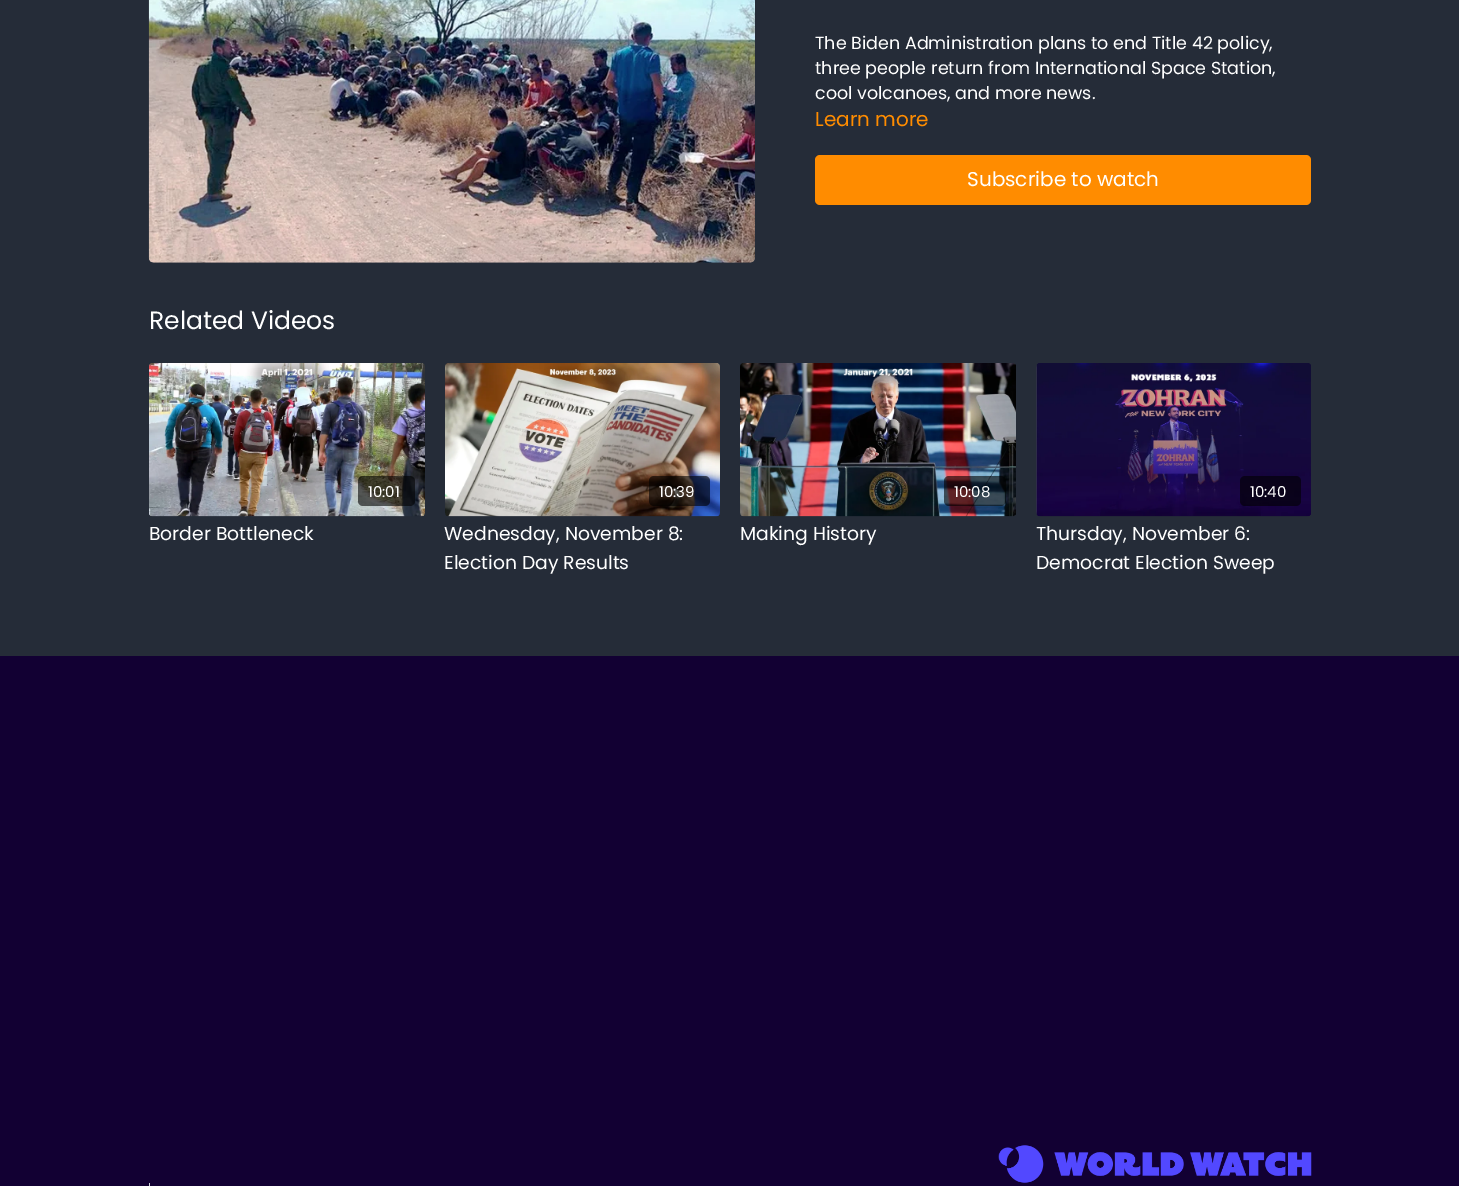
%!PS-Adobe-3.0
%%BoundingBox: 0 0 1459 1186
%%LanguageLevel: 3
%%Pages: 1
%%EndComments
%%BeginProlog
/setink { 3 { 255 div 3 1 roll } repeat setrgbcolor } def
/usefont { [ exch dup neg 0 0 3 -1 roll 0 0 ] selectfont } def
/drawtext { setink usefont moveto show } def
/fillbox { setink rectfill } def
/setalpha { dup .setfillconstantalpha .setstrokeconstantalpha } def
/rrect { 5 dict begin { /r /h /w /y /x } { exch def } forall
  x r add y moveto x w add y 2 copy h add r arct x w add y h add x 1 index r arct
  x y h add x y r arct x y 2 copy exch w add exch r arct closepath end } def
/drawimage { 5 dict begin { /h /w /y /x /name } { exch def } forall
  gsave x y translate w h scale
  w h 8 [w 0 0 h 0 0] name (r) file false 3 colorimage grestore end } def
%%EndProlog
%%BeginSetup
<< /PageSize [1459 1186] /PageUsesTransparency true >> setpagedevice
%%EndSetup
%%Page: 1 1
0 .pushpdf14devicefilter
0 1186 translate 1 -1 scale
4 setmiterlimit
0 0 1459 1186 18 0 51 fillbox
0 0 1459 656 37 44 56 fillbox
(assets/img1.rgb) 148 0 607 263 drawimage
(The Biden Administration plans to end Title 42 policy,) 815 49 /Poppins-Regular 17.5 255 255 255 drawtext
(three people return from International Space Station,) 815 74 /Poppins-Regular 17.5 255 255 255 drawtext
(cool volcanoes, and more news.) 815 99 /Poppins-Regular 17.5 255 255 255 drawtext
(Learn more) 815 126 /Poppins-Regular 20 255 140 0 drawtext
815 155 496 50 5 rrect fill
(Subscribe to watch) 967 186 /Poppins-Regular 20 255 255 255 drawtext
(Related Videos) 149 329 /Poppins-Regular 25 255 255 255 drawtext
(assets/img2.rgb) 149 363 276 154 drawimage
0.6 setalpha
0 0 0 setink
358 476 57 30 5 rrect fill
1 setalpha
(10:01) 368 497 /Poppins-Regular 15 255 255 255 drawtext
(Border Bottleneck) 149 540 /Poppins-Regular 18.75 255 255 255 drawtext
(assets/img3.rgb) 445 363 275 154 drawimage
0.6 setalpha
0 0 0 setink
649 476 61 30 5 rrect fill
1 setalpha
(10:39) 659 497 /Poppins-Regular 15 255 255 255 drawtext
(Wednesday, November 8:) 444 540 /Poppins-Regular 18.75 255 255 255 drawtext
(Election Day Results) 444 569 /Poppins-Regular 18.75 255 255 255 drawtext
(assets/img4.rgb) 740 363 276 154 drawimage
0.6 setalpha
0 0 0 setink
944 476 62 30 5 rrect fill
1 setalpha
(10:08) 954 497 /Poppins-Regular 15 255 255 255 drawtext
(Making History) 740 540 /Poppins-Regular 18.75 255 255 255 drawtext
gsave 1036 363 275 153 5 rrect clip newpath
<< /ShadingType 2 /ColorSpace /DeviceRGB /Coords [1036 439 1311 439] /Extend [true true] /Function << /FunctionType 3 /Domain [0 1] /Functions [<< /FunctionType 2 /Domain [0 1] /C0 [0.255 0.278 0.322] /C1 [0.255 0.278 0.322] /N 1 >> << /FunctionType 2 /Domain [0 1] /C0 [0.255 0.278 0.322] /C1 [0.247 0.271 0.314] /N 1 >> << /FunctionType 2 /Domain [0 1] /C0 [0.247 0.271 0.314] /C1 [0.239 0.263 0.306] /N 1 >> << /FunctionType 2 /Domain [0 1] /C0 [0.239 0.263 0.306] /C1 [0.239 0.263 0.306] /N 1 >>] /Bounds [0.08 0.18 0.33] /Encode [0 1 0 1 0 1 0 1] >> >> shfill grestore
(assets/img5.rgb) 1036 363 275 154 drawimage
0.6 setalpha
0 0 0 setink
1240 476 61 30 5 rrect fill
1 setalpha
(10:40) 1250 497 /Poppins-Regular 15 255 255 255 drawtext
(Thursday, November 6:) 1036 540 /Poppins-Regular 18.75 255 255 255 drawtext
(Democrat Election Sweep) 1036 569 /Poppins-Regular 18.75 255 255 255 drawtext
(assets/img6.rgb) 998 1145 314 38 drawimage
149 1183 1 3 209 213 219 fillbox
.poppdf14devicefilter showpage
%%EOF
